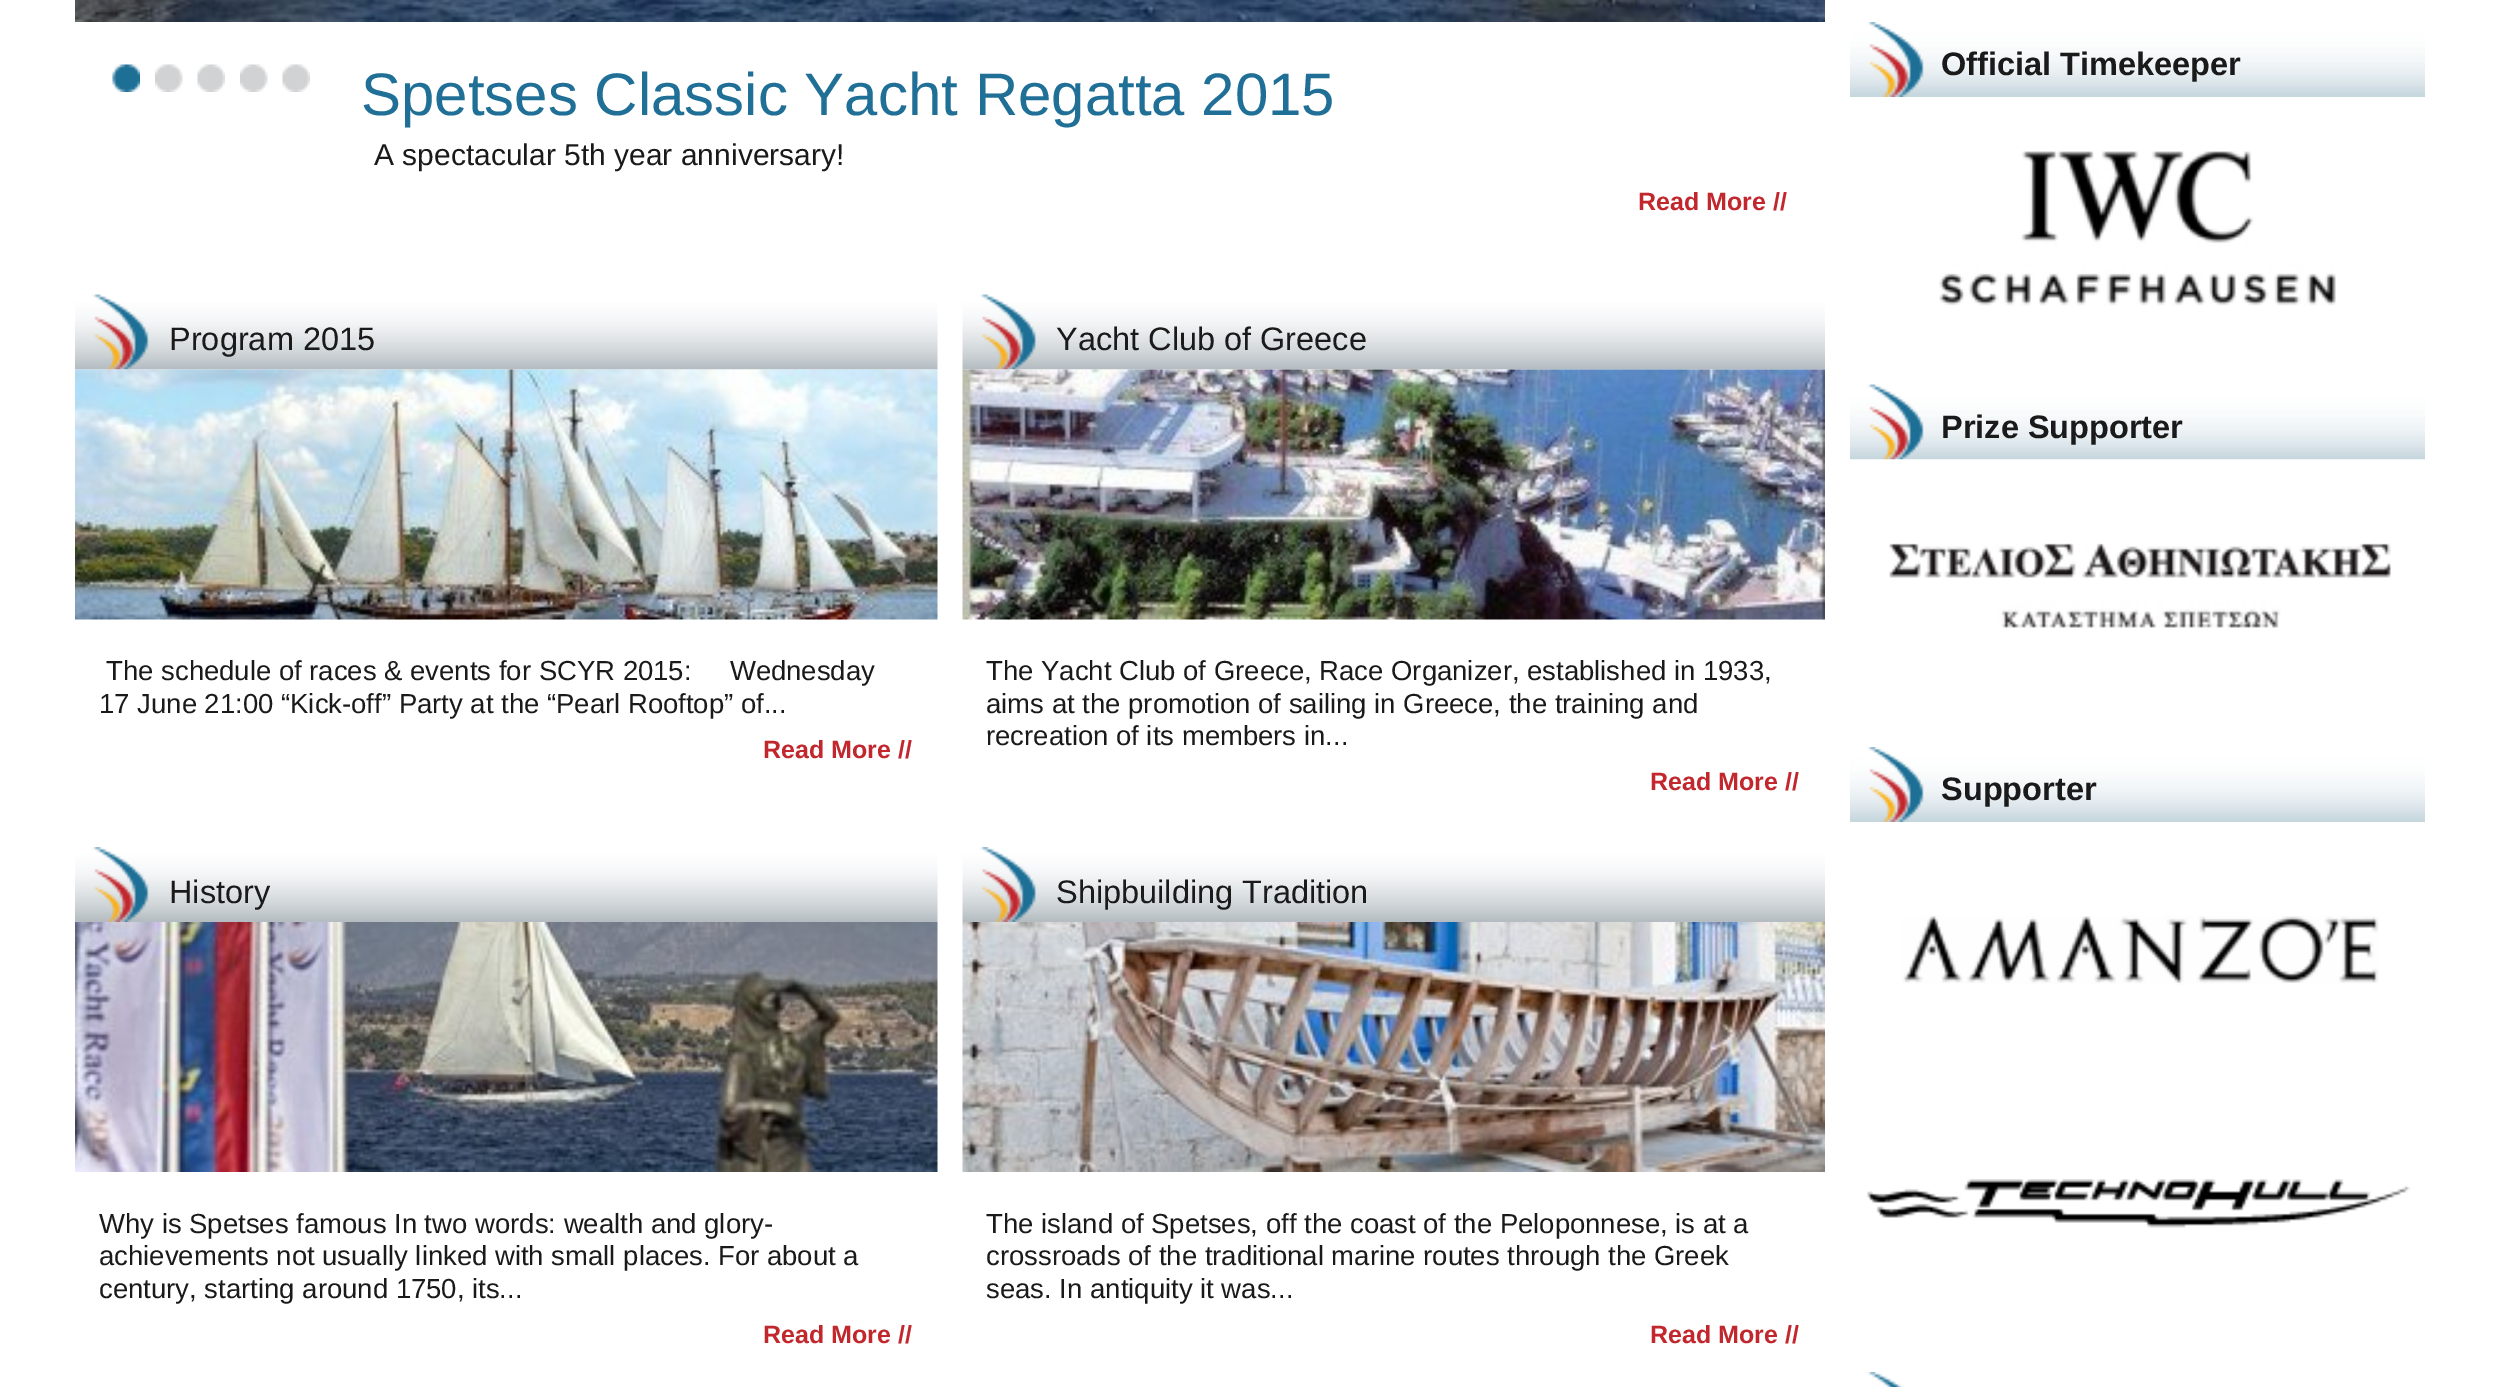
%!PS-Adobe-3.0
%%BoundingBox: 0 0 2496 1387
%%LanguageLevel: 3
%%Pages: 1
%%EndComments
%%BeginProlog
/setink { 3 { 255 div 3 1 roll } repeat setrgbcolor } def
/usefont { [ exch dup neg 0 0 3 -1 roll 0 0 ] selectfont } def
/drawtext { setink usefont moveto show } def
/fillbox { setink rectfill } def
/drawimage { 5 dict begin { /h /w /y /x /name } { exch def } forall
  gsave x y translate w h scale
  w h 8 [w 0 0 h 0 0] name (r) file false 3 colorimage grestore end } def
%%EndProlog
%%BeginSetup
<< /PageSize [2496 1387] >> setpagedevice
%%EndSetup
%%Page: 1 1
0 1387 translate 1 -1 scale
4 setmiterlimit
0 0 2496 1387 255 255 255 fillbox
(assets/img1.rgb) 75 0 1750 22 drawimage
(assets/img2.rgb) 112 64 28 28 drawimage
(assets/img3.rgb) 155 64 28 28 drawimage
(assets/img4.rgb) 197 64 28 28 drawimage
(assets/img5.rgb) 240 64 28 28 drawimage
(assets/img6.rgb) 282 64 28 28 drawimage
(Spetses Classic Yacht Regatta 2015) 361 115 /LiberationSans-Regular 60 32 111 150 drawtext
(A spectacular 5th year anniversary!) 374 165 /LiberationSans-Regular 30 26 26 26 drawtext
(Read More //) 1638 210 /LiberationSans-Bold 25 193 39 45 drawtext
(assets/img7.rgb) 75 294 863 76 drawimage
(Program 2015) 169 350 /LiberationSans-Regular 32.5 26 26 26 drawtext
(assets/img8.rgb) 75 369 863 251 drawimage
(The schedule of races & events for SCYR 2015:     Wednesday) 106 680 /LiberationSans-Regular 27.5 26 26 26 drawtext
(17 June 21:00 “Kick-off” Party at the “Pearl Rooftop” of...) 99 713 /LiberationSans-Regular 27.5 26 26 26 drawtext
(Read More //) 763 758 /LiberationSans-Bold 25 193 39 45 drawtext
(assets/img9.rgb) 962 294 863 76 drawimage
(Yacht Club of Greece) 1056 350 /LiberationSans-Regular 32.5 26 26 26 drawtext
(assets/img10.rgb) 962 369 863 251 drawimage
(The Yacht Club of Greece, Race Organizer, established in 1933,) 986 680 /LiberationSans-Regular 27.5 26 26 26 drawtext
(aims at the promotion of sailing in Greece, the training and) 986 713 /LiberationSans-Regular 27.5 26 26 26 drawtext
(recreation of its members in...) 986 745 /LiberationSans-Regular 27.5 26 26 26 drawtext
(Read More //) 1650 790 /LiberationSans-Bold 25 193 39 45 drawtext
(assets/img11.rgb) 75 847 863 75 drawimage
(History) 169 903 /LiberationSans-Regular 32.5 26 26 26 drawtext
(assets/img12.rgb) 75 922 863 250 drawimage
(Why is Spetses famous In two words: wealth and glory-) 99 1233 /LiberationSans-Regular 27.5 26 26 26 drawtext
(achievements not usually linked with small places. For about a) 99 1265 /LiberationSans-Regular 27.5 26 26 26 drawtext
(century, starting around 1750, its...) 99 1298 /LiberationSans-Regular 27.5 26 26 26 drawtext
(Read More //) 763 1343 /LiberationSans-Bold 25 193 39 45 drawtext
(assets/img13.rgb) 962 847 863 75 drawimage
(Shipbuilding Tradition) 1056 903 /LiberationSans-Regular 32.5 26 26 26 drawtext
(assets/img14.rgb) 962 922 863 250 drawimage
(The island of Spetses, off the coast of the Peloponnese, is at a) 986 1233 /LiberationSans-Regular 27.5 26 26 26 drawtext
(crossroads of the traditional marine routes through the Greek) 986 1265 /LiberationSans-Regular 27.5 26 26 26 drawtext
(seas. In antiquity it was...) 986 1298 /LiberationSans-Regular 27.5 26 26 26 drawtext
(Read More //) 1650 1343 /LiberationSans-Bold 25 193 39 45 drawtext
(assets/img15.rgb) 1850 22 575 75 drawimage
(Official Timekeeper) 1941 75 /LiberationSans-Bold 32.5 26 26 26 drawtext
(assets/img16.rgb) 1939 151 397 155 drawimage
(assets/img17.rgb) 1850 384 575 76 drawimage
(Prize Supporter) 1941 438 /LiberationSans-Bold 32.5 26 26 26 drawtext
(assets/img18.rgb) 1850 459 575 169 drawimage
(assets/img15.rgb) 1850 747 575 75 drawimage
(Supporter) 1941 800 /LiberationSans-Bold 32.5 26 26 26 drawtext
(assets/img19.rgb) 1902 915 477 70 drawimage
(assets/img20.rgb) 1867 1179 544 49 drawimage
(assets/img21.rgb) 1867 1372 37 15 drawimage
showpage
%%EOF
